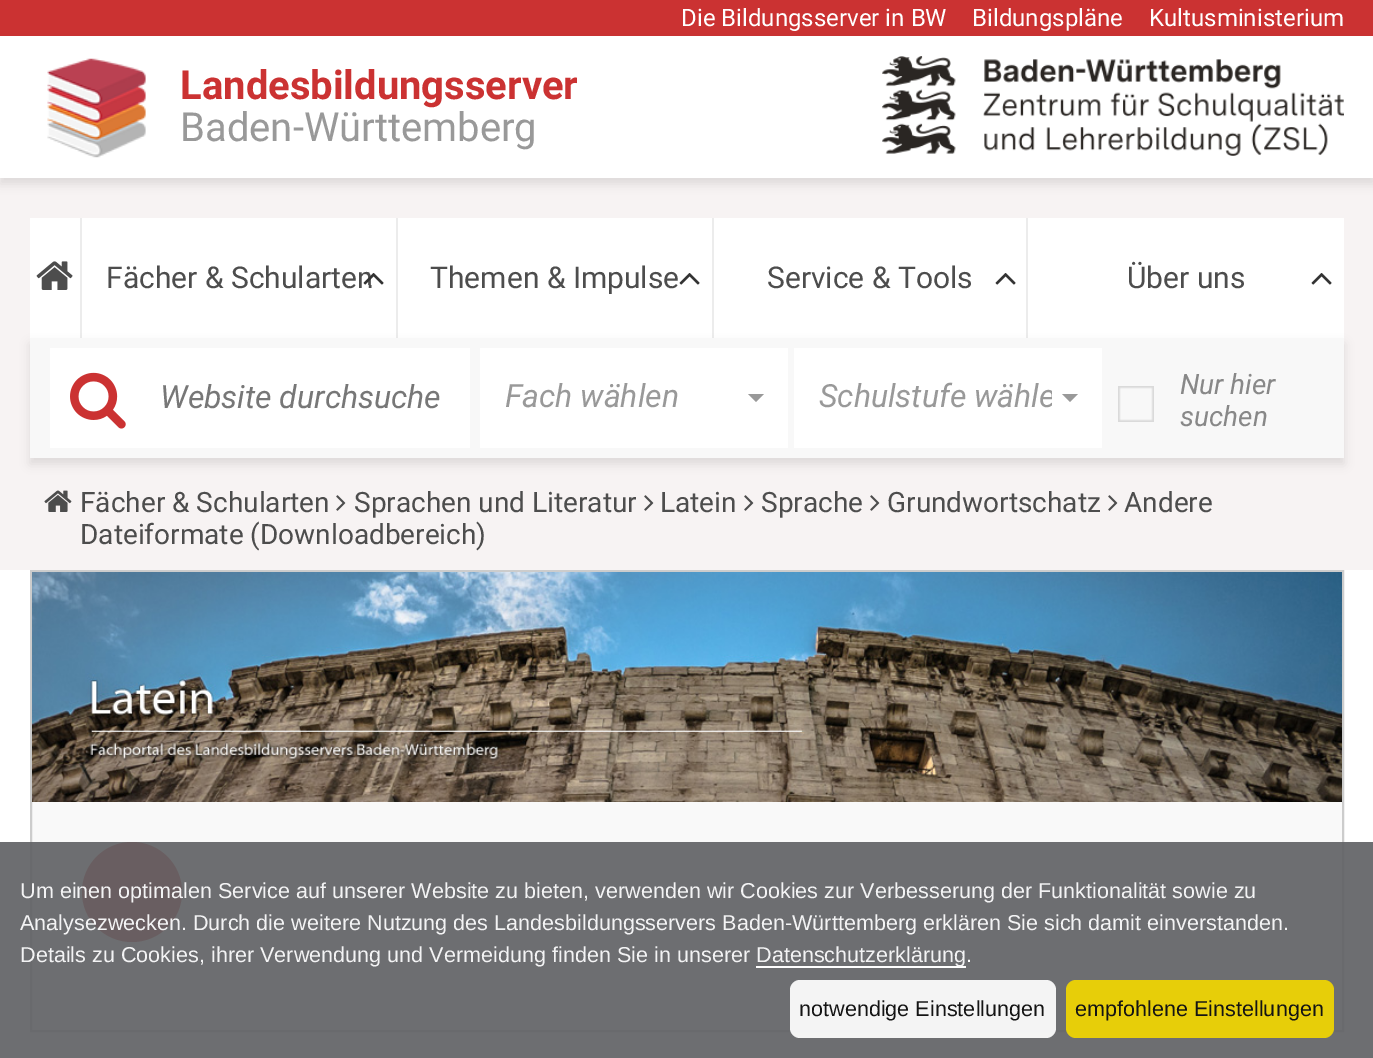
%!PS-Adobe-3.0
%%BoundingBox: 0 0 1373 1058
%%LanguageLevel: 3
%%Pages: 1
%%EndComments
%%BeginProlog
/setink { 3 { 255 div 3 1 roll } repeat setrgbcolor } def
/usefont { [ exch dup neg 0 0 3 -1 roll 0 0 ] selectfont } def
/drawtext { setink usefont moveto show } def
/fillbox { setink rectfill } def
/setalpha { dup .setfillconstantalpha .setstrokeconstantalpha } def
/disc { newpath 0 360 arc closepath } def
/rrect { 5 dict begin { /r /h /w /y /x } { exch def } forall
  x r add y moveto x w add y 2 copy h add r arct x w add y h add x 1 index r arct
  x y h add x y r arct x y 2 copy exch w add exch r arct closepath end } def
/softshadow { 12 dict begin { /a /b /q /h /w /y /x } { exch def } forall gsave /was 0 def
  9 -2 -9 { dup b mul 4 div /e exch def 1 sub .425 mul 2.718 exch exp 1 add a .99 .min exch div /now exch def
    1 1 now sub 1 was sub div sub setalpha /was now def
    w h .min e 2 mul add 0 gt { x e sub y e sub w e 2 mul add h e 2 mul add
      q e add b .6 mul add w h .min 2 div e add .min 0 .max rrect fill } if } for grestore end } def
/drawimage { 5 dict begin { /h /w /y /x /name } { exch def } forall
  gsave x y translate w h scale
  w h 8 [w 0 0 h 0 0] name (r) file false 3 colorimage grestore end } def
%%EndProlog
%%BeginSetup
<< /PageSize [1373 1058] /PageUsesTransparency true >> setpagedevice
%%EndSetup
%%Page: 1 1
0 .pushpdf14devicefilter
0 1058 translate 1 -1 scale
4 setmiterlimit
0 0 1373 1058 247 243 243 fillbox
0 0 1373 36 203 50 50 fillbox
0 0 0 setink
0 42 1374 142 0 5 0.1 softshadow
(Die Bildungsserver in BW) 681 26 /Roboto-Regular 24 255 255 255 drawtext
(Bildungspläne) 972 26 /Roboto-Regular 24 255 255 255 drawtext
(Kultusministerium) 1149 26 /Roboto-Regular 24 255 255 255 drawtext
0 36 1373 142 255 255 255 fillbox
(assets/img1.rgb) 47 58 99 100 drawimage
(Landesbildungsserver) 180 99 /Roboto-Bold 40 203 50 50 drawtext
(Baden-Württemberg) 180 141 /Roboto-Regular 40 153 153 153 drawtext
(assets/img2.rgb) 882 56 462 100 drawimage
30 218 50 120 255 255 255 fillbox
80 218 2 120 236 236 236 fillbox
(assets/img3.rgb) 36 261 37 29 drawimage
82 218 314 120 255 255 255 fillbox
396 218 2 120 236 236 236 fillbox
(Fächer & Schularten) 106 288 /Roboto-Regular 30 77 77 77 drawtext
(assets/img4.rgb) 363 273 21 12 drawimage
398 218 314 120 255 255 255 fillbox
712 218 2 120 236 236 236 fillbox
(Themen & Impulse) 430 288 /Roboto-Regular 30 77 77 77 drawtext
(assets/img5.rgb) 679 273 21 12 drawimage
714 218 312 120 255 255 255 fillbox
1026 218 2 120 236 236 236 fillbox
(Service & Tools) 767 288 /Roboto-Regular 30 77 77 77 drawtext
(assets/img5.rgb) 995 273 21 12 drawimage
1028 218 316 120 255 255 255 fillbox
(Über uns) 1127 288 /Roboto-Regular 30 77 77 77 drawtext
(assets/img5.rgb) 1311 273 21 12 drawimage
0 0 0 setink
30 344 1314 120 0 5 0.1 softshadow
30 338 1314 120 248 248 248 fillbox
50 348 420 100 255 255 255 fillbox
(assets/img6.rgb) 70 372 56 57 drawimage
(Website durchsuche) 160 408 /Roboto-Italic 32 119 119 119 drawtext
480 348 308 100 255 255 255 fillbox
(Fach wählen) 505 407 /Roboto-Italic 32 153 153 153 drawtext
748 394 moveto 764 394 lineto 756 402 lineto closepath fill
794 348 308 100 255 255 255 fillbox
gsave
818 376 234 44 rectclip
(Schulstufe wähle) 819 407 /Roboto-Italic 32 153 153 153 drawtext
grestore
153 153 153 setink
1062 394 moveto 1078 394 lineto 1070 402 lineto closepath fill
(assets/img7.rgb) 1118 386 36 36 drawimage
(Nur hier) 1180 394 /Roboto-Italic 28 136 136 136 drawtext
(suchen) 1180 426 /Roboto-Italic 28 136 136 136 drawtext
(assets/img8.rgb) 44 490 28 22 drawimage
(Fächer & Schularten) 80 512 /Roboto-Regular 28 77 77 77 drawtext
(assets/img9.rgb) 336 495 10 16 drawimage
(Sprachen und Literatur) 354 512 /Roboto-Regular 28 77 77 77 drawtext
(assets/img9.rgb) 644 495 10 16 drawimage
(Latein) 660 512 /Roboto-Regular 28 77 77 77 drawtext
(assets/img9.rgb) 744 495 10 16 drawimage
(Sprache) 761 512 /Roboto-Regular 28 77 77 77 drawtext
(assets/img9.rgb) 870 495 10 16 drawimage
(Grundwortschatz) 887 512 /Roboto-Regular 28 77 77 77 drawtext
(assets/img9.rgb) 1108 495 10 16 drawimage
(Andere) 1124 512 /Roboto-Regular 28 77 77 77 drawtext
(Dateiformate \(Downloadbereich\)) 80 544 /Roboto-Regular 28 77 77 77 drawtext
0 570 1373 488 255 255 255 fillbox
32 802 1310 228 249 249 249 fillbox
204 204 204 setink
2 setlinewidth
31 571 1312 460 rectstroke
(assets/img10.rgb) 32 572 1310 230 drawimage
203 50 50 setink
132 892 50 disc fill
0.92 setalpha
0 842 1373 216 97 98 101 fillbox
1 setalpha
(Um einen optimalen Service auf unserer Website zu bieten, verwenden wir Cookies zur Verbesserung der Funktionalität sowie zu) 20 898 /LiberationSans-Regular 21.6 243 243 244 drawtext
(Analysezwecken. Durch die weitere Nutzung des Landesbildungsservers Baden-Württemberg erklären Sie sich damit einverstanden.) 20 930 /LiberationSans-Regular 21.6 243 243 244 drawtext
(Details zu Cookies, ihrer Verwendung und Vermeidung finden Sie in unserer) 20 962 /LiberationSans-Regular 21.6 243 243 244 drawtext
756 966 210 2 255 255 255 fillbox
(Datenschutzerklärung) 756 962 /LiberationSans-Regular 21.6 243 243 244 drawtext
(.) 966 962 /LiberationSans-Regular 21.6 255 255 255 drawtext
0.92 setalpha
790 980 266 58 10 rrect fill
1 setalpha
(notwendige Einstellungen) 799 1016 /LiberationSans-Regular 21.6 20 20 20 drawtext
0.92 setalpha
241 214 0 setink
1066 980 268 58 10 rrect fill
1 setalpha
(empfohlene Einstellungen) 1075 1016 /LiberationSans-Regular 21.6 20 20 20 drawtext
.poppdf14devicefilter showpage
%%EOF
